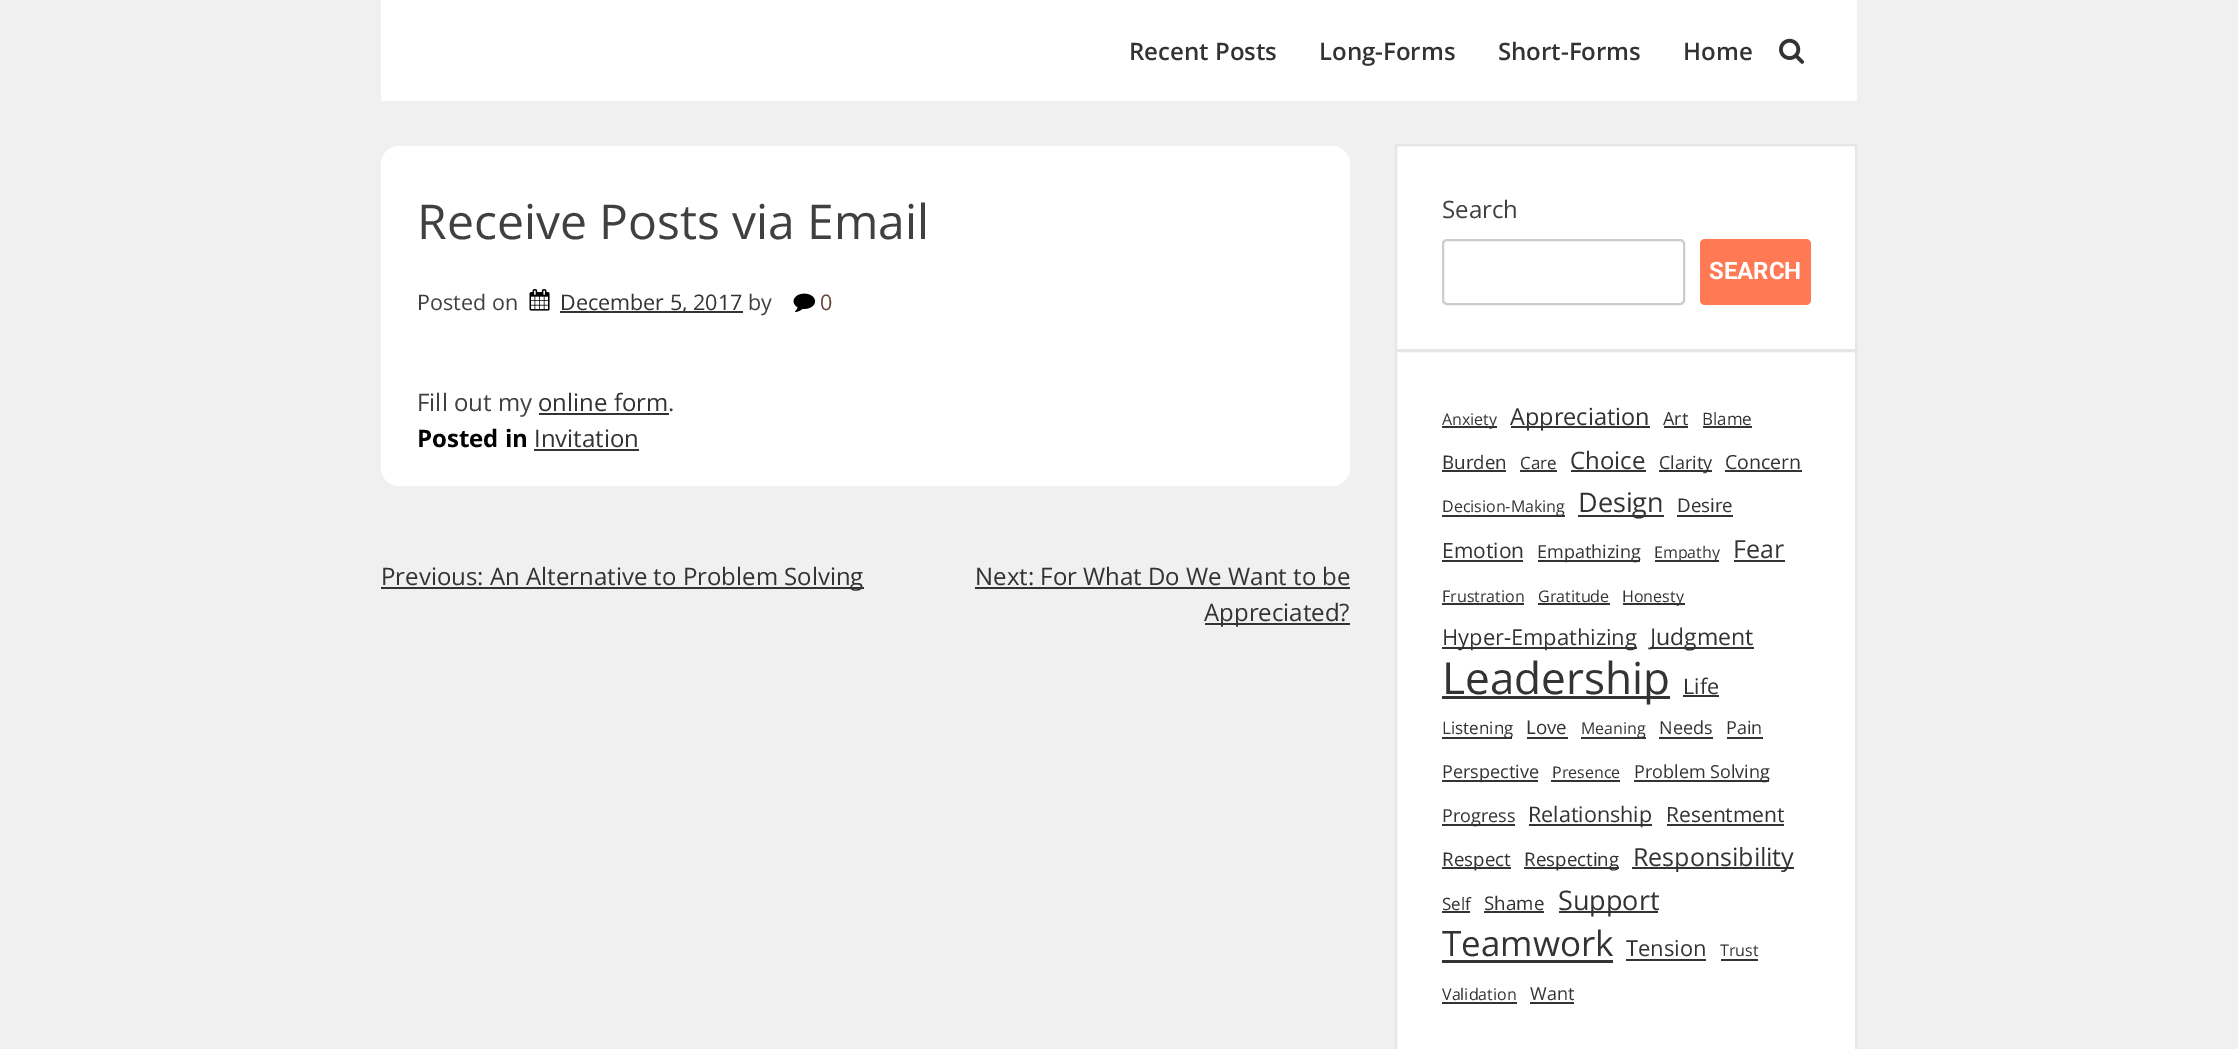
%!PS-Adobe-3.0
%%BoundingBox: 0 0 2238 1049
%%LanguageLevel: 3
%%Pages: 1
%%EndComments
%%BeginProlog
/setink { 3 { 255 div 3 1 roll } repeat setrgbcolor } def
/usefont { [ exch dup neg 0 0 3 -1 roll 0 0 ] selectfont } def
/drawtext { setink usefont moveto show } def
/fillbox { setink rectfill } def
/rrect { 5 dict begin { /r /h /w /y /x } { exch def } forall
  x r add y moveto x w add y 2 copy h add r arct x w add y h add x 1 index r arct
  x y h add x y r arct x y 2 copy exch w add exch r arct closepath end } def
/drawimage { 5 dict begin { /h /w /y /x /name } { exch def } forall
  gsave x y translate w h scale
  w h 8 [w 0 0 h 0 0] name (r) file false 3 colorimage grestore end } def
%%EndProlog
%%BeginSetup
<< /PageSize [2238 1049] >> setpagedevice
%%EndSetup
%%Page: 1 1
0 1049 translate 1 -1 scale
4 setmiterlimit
0 0 2238 1049 240 240 241 fillbox
381 0 1476 101 255 255 255 fillbox
(Recent Posts) 1129 60 /OpenSans-SemiBold 24 51 51 51 drawtext
(Long-Forms) 1319 60 /OpenSans-SemiBold 24 51 51 51 drawtext
(Short-Forms) 1498 60 /OpenSans-SemiBold 24 51 51 51 drawtext
(Home) 1683 60 /OpenSans-SemiBold 24 51 51 51 drawtext
(assets/img1.rgb) 1779 38 25 26 drawimage
255 255 255 setink
381 146 969 340 18 rrect fill
(Receive Posts via Email) 417 239 /OpenSans-Regular 48 64 64 64 drawtext
(Posted on) 417 310 /OpenSans-Regular 21.5 64 64 64 drawtext
(assets/img2.rgb) 529 289 21 22 drawimage
560 311 183 2 51 51 51 fillbox
(December 5, 2017) 560 310 /OpenSans-Regular 21.5 51 51 51 drawtext
(by) 748 310 /OpenSans-Regular 21.5 64 64 64 drawtext
(assets/img3.rgb) 793 293 23 20 drawimage
(0) 820 310 /OpenSans-Regular 21.5 103 69 57 drawtext
(Fill out my) 417 411 /OpenSans-Regular 24 64 64 64 drawtext
(online form) 538 411 /OpenSans-Regular 24 51 51 51 drawtext
539 413 130 2 51 51 51 fillbox
(.) 668 411 /OpenSans-Regular 24 64 64 64 drawtext
(Posted in) 417 447 /OpenSans-Bold 24 0 0 0 drawtext
(Invitation) 534 447 /OpenSans-Regular 24 51 51 51 drawtext
534 449 105 2 51 51 51 fillbox
381 587 483 2 51 51 51 fillbox
(Previous: An Alternative to Problem Solving) 381 585 /OpenSans-Regular 24 51 51 51 drawtext
(Next: For What Do We Want to be) 975 585 /OpenSans-Regular 24 51 51 51 drawtext
975 587 375 2 51 51 51 fillbox
1205 623 145 2 51 51 51 fillbox
(Appreciated?) 1204 621 /OpenSans-Regular 24 51 51 51 drawtext
255 255 255 setink
1396 145 moveto 1856 145 lineto 1856 350 lineto 1396 350 lineto closepath gsave fill grestore
230 230 230 setink
2 setlinewidth
stroke
(Search) 1442 218 /OpenSans-Regular 24 64 64 64 drawtext
204 204 204 setink
1443 240 241 64 4 rrect stroke
255 121 85 setink
1700 239 111 66 5 rrect fill
(SEARCH) 1709 279 /Roboto-Bold 24 255 255 255 drawtext
1396 351 moveto 1856 351 lineto 1856 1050 lineto 1396 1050 lineto closepath gsave fill grestore
230 230 230 setink
stroke
1442 426 55 2 51 51 51 fillbox
(Anxiety) 1442 425 /OpenSans-Regular 16 51 51 51 drawtext
1511 426 139 2 51 51 51 fillbox
(Appreciation) 1510 425 /OpenSans-Regular 23.5 51 51 51 drawtext
(Art) 1663 425 /OpenSans-Regular 18 51 51 51 drawtext
1664 426 24 2 51 51 51 fillbox
(Blame) 1702 425 /OpenSans-Regular 17 51 51 51 drawtext
1703 426 49 2 51 51 51 fillbox
(Burden) 1442 469 /OpenSans-Regular 18.75 51 51 51 drawtext
1442 470 64 2 51 51 51 fillbox
(Care) 1520 469 /OpenSans-Regular 17 51 51 51 drawtext
1520 470 37 2 51 51 51 fillbox
(Choice) 1570 469 /OpenSans-Regular 24 51 51 51 drawtext
1571 470 75 2 51 51 51 fillbox
1659 470 53 2 51 51 51 fillbox
(Clarity) 1659 469 /OpenSans-Regular 18 51 51 51 drawtext
(Concern) 1725 469 /OpenSans-Regular 19.5 51 51 51 drawtext
1725 470 77 2 51 51 51 fillbox
1442 515 123 2 51 51 51 fillbox
(Decision-Making) 1442 512 /OpenSans-Regular 16 51 51 51 drawtext
1578 515 86 2 51 51 51 fillbox
(Design) 1578 512 /OpenSans-Regular 27 51 51 51 drawtext
(Desire) 1677 512 /OpenSans-Regular 18.75 51 51 51 drawtext
1677 515 56 2 51 51 51 fillbox
(Emotion) 1442 558 /OpenSans-Regular 21 51 51 51 drawtext
1442 560 81 2 51 51 51 fillbox
1538 560 102 2 51 51 51 fillbox
(Empathizing) 1537 558 /OpenSans-Regular 18 51 51 51 drawtext
1655 560 64 2 51 51 51 fillbox
(Empathy) 1654 558 /OpenSans-Regular 16 51 51 51 drawtext
(Fear) 1733 558 /OpenSans-Regular 25 51 51 51 drawtext
1734 560 51 2 51 51 51 fillbox
(Frustration) 1442 602 /OpenSans-Regular 16 51 51 51 drawtext
1442 603 82 2 51 51 51 fillbox
(Gratitude) 1538 602 /OpenSans-Regular 16 51 51 51 drawtext
1538 603 72 2 51 51 51 fillbox
1623 603 62 2 51 51 51 fillbox
(Honesty) 1622 602 /OpenSans-Regular 16 51 51 51 drawtext
1442 647 195 2 51 51 51 fillbox
(Hyper-Empathizing) 1442 645 /OpenSans-Regular 21.9 51 51 51 drawtext
1650 647 104 2 51 51 51 fillbox
(Judgment) 1650 645 /OpenSans-Regular 23 51 51 51 drawtext
1442 696 228 3 51 51 51 fillbox
(Leadership) 1442 694 /OpenSans-Regular 44 51 51 51 drawtext
(Life) 1683 694 /OpenSans-Regular 21.5 51 51 51 drawtext
1683 695 36 2 51 51 51 fillbox
1442 737 70 2 51 51 51 fillbox
(Listening) 1442 734 /OpenSans-Regular 17 51 51 51 drawtext
(Love) 1526 734 /OpenSans-Regular 18.75 51 51 51 drawtext
1527 737 41 2 51 51 51 fillbox
1581 737 65 2 51 51 51 fillbox
(Meaning) 1581 734 /OpenSans-Regular 16 51 51 51 drawtext
(Needs) 1659 734 /OpenSans-Regular 18 51 51 51 drawtext
1659 737 54 2 51 51 51 fillbox
(Pain) 1726 734 /OpenSans-Regular 18 51 51 51 drawtext
1727 737 36 2 51 51 51 fillbox
1442 780 96 2 51 51 51 fillbox
(Perspective) 1442 778 /OpenSans-Regular 18 51 51 51 drawtext
(Presence) 1552 778 /OpenSans-Regular 16 51 51 51 drawtext
1551 780 69 2 51 51 51 fillbox
1634 780 135 2 51 51 51 fillbox
(Problem Solving) 1634 778 /OpenSans-Regular 18 51 51 51 drawtext
1442 824 73 2 51 51 51 fillbox
(Progress) 1442 822 /OpenSans-Regular 18 51 51 51 drawtext
1529 824 123 2 51 51 51 fillbox
(Relationship) 1528 822 /OpenSans-Regular 21.5 51 51 51 drawtext
(Resentment) 1666 822 /OpenSans-Regular 21 51 51 51 drawtext
1667 824 117 2 51 51 51 fillbox
1442 867 69 2 51 51 51 fillbox
(Respect) 1442 866 /OpenSans-Regular 18.75 51 51 51 drawtext
1524 867 95 2 51 51 51 fillbox
(Respecting) 1524 866 /OpenSans-Regular 18.75 51 51 51 drawtext
1632 867 162 2 51 51 51 fillbox
(Responsibility) 1633 866 /OpenSans-Regular 25 51 51 51 drawtext
(Self) 1442 910 /OpenSans-Regular 17 51 51 51 drawtext
1442 911 28 2 51 51 51 fillbox
(Shame) 1484 910 /OpenSans-Regular 18.75 51 51 51 drawtext
1484 911 60 2 51 51 51 fillbox
1559 911 99 2 51 51 51 fillbox
(Support) 1558 910 /OpenSans-Regular 27 51 51 51 drawtext
(Teamwork) 1442 956 /OpenSans-Regular 35 51 51 51 drawtext
1442 960 171 3 51 51 51 fillbox
(Tension) 1626 956 /OpenSans-Regular 21.9 51 51 51 drawtext
1626 959 80 2 51 51 51 fillbox
(Trust) 1720 956 /OpenSans-Regular 16 51 51 51 drawtext
1721 959 37 2 51 51 51 fillbox
(Validation) 1442 1000 /OpenSans-Regular 16 51 51 51 drawtext
1442 1002 75 2 51 51 51 fillbox
(Want) 1530 1000 /OpenSans-Regular 18 51 51 51 drawtext
1530 1002 44 2 51 51 51 fillbox
showpage
%%EOF
